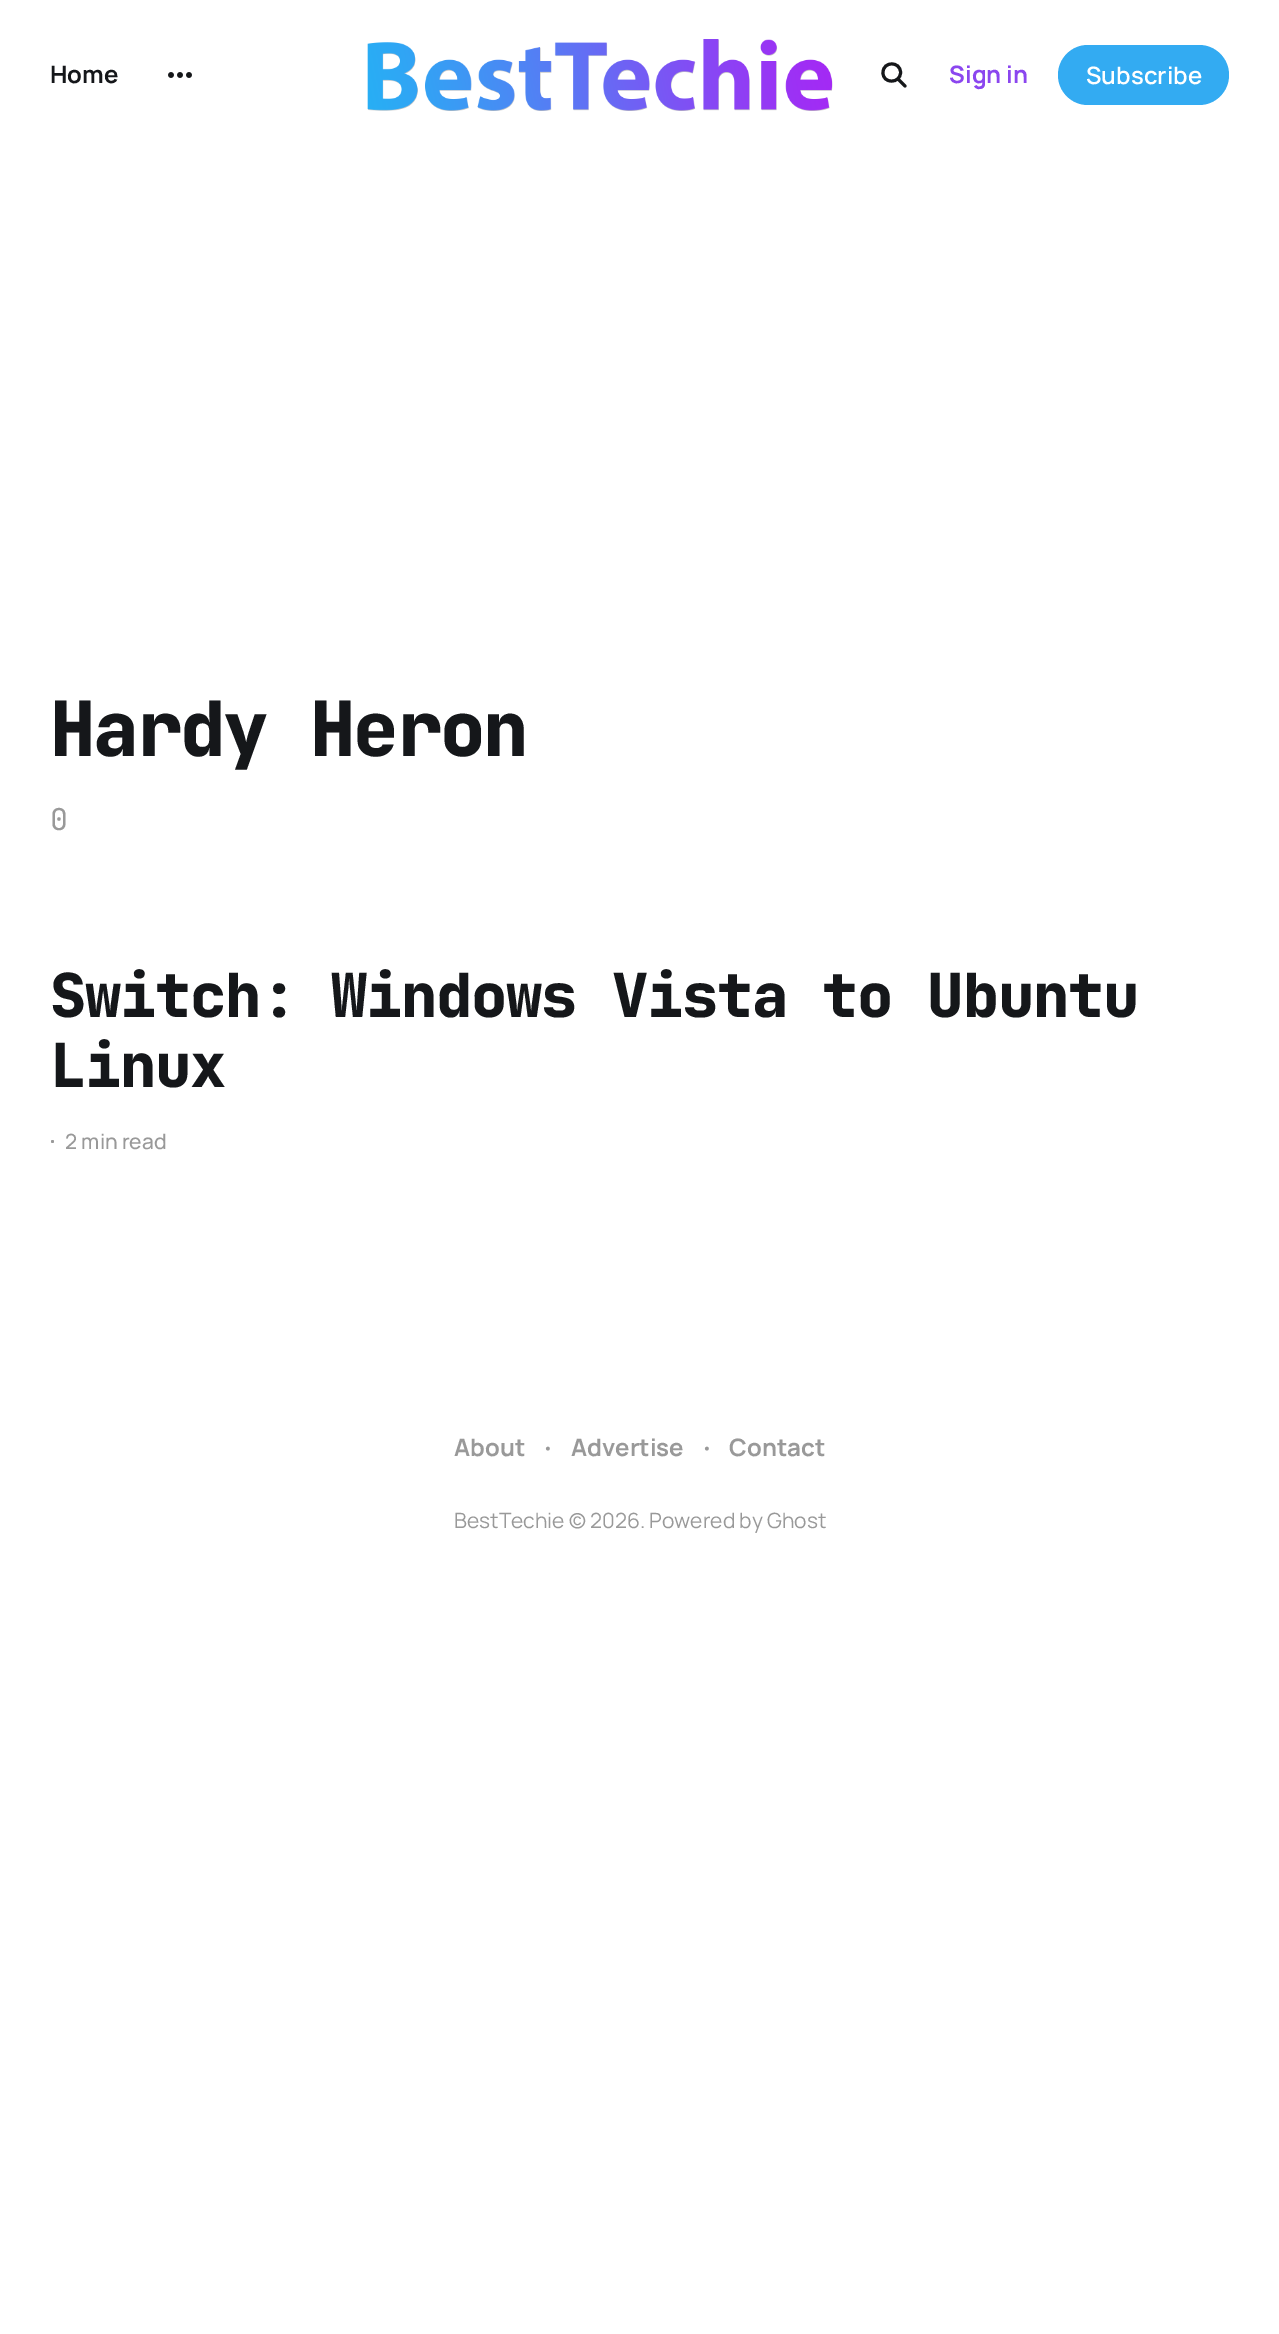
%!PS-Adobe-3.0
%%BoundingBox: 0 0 1279 2334
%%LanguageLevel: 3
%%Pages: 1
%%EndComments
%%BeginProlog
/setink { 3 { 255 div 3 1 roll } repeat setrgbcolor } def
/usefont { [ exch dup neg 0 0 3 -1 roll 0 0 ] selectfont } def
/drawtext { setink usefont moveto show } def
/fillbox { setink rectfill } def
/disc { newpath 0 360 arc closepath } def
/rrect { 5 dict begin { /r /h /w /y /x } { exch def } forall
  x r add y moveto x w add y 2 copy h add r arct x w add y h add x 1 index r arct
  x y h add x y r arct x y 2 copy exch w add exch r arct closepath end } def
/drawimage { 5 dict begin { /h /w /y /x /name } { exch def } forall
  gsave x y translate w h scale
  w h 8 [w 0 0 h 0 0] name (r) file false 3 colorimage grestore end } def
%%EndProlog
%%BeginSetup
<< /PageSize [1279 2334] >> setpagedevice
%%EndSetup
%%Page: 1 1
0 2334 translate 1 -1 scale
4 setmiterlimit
0 0 1279 2334 255 255 255 fillbox
(Home) 50 83 /Manrope-Bold 24 21 23 26 drawtext
(assets/img1.rgb) 168 72 24 6 drawimage
(assets/img2.rgb) 367 39 466 72 drawimage
3 setlinewidth
1 setlinecap
1 setlinejoin
905 86 moveto 898 79 lineto closepath 900.5 72.5 moveto 900.5 84 882.5 84 883 72.5 curveto 883 61 900.5 61 900.5 72.5 curveto closepath stroke
(Sign in) 949 83 /Manrope-Bold 24 139 70 239 drawtext
51 171 242 setink
1058 45 171 60 30 rrect fill
(Subscribe) 1086 84 /Manrope-SemiBold 24 255 255 255 drawtext
/JetBrainsMono-ExtraBold 76 usefont
21 23 26 setink
50 756 moveto -2.25 0 (Hardy Heron) ashow
(0) 50 830 /JetBrainsMono-Regular 30 153 153 153 drawtext
/JetBrainsMono-ExtraBold 60.5 usefont
21 23 26 setink
50 1017 moveto -1.2 0 (Switch: Windows Vista to Ubuntu) ashow
50 1087 moveto -1.2 0 (Linux) ashow
153 153 153 setink
52.5 1141.5 1.5 disc fill
(2 min read) 65 1149 /Manrope-Medium 21 153 153 153 drawtext
(About) 454 1456 /Manrope-Bold 24 153 153 153 drawtext
(•) 543 1453 /Manrope-Bold 14 153 153 153 drawtext
(Advertise) 571 1456 /Manrope-Bold 24 153 153 153 drawtext
(•) 702 1453 /Manrope-Bold 14 153 153 153 drawtext
(Contact) 729 1456 /Manrope-Bold 24 153 153 153 drawtext
(BestTechie © 2026. Powered by Ghost) 454 1528 /Manrope-Regular 21 153 153 153 drawtext
showpage
%%EOF
